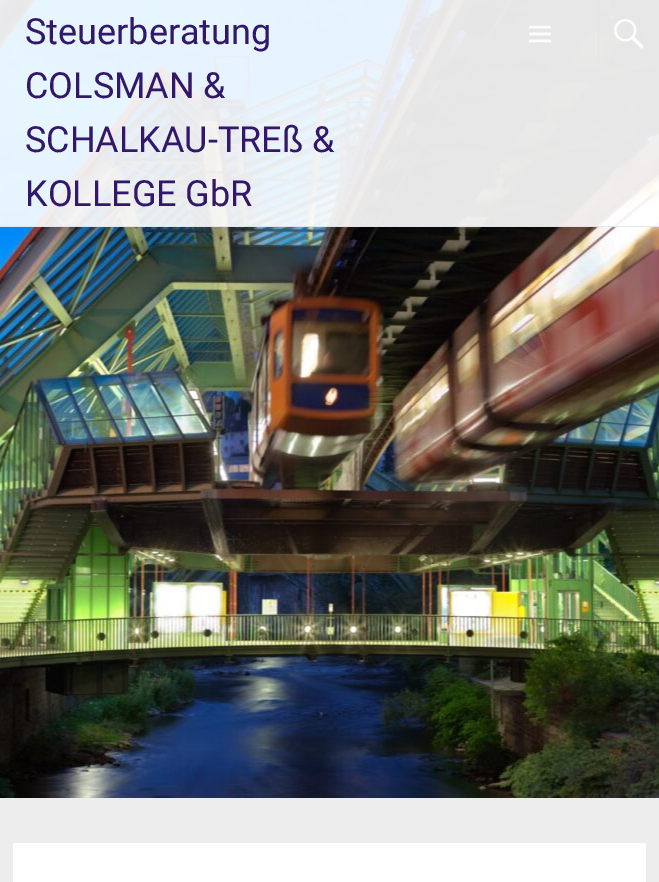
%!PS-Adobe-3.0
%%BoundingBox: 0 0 659 882
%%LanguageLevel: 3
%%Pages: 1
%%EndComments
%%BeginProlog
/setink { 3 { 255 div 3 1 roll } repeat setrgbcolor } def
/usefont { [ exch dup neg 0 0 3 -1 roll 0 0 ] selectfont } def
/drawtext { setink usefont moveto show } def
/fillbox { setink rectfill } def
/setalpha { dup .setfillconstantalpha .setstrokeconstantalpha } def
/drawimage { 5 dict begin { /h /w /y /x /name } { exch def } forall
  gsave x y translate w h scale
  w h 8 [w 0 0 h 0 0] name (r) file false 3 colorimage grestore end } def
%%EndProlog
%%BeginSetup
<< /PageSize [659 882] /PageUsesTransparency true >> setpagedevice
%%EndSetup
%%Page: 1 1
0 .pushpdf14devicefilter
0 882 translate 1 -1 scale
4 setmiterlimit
0 0 659 882 255 255 255 fillbox
(assets/img1.rgb) 0 0 659 798 drawimage
0.9 setalpha
0 0 659 227 255 255 255 fillbox
0 226 659 1 225 228 230 fillbox
1 setalpha
(Steuerberatung) 25 44 /Roboto-Regular 36 49 24 107 drawtext
(COLSMAN &) 25 98 /Roboto-Regular 36 49 24 107 drawtext
(SCHALKAU-TREß &) 25 152 /Roboto-Regular 36 49 24 107 drawtext
(KOLLEGE GbR) 25 206 /Roboto-Regular 36 49 24 107 drawtext
(assets/img2.rgb) 529 25 22 18 drawimage
598 0 1 64 226 228 230 fillbox
(assets/img3.rgb) 614 19 30 30 drawimage
0 798 659 84 237 237 237 fillbox
13 843 633 39 255 255 255 fillbox
.poppdf14devicefilter showpage
%%EOF
